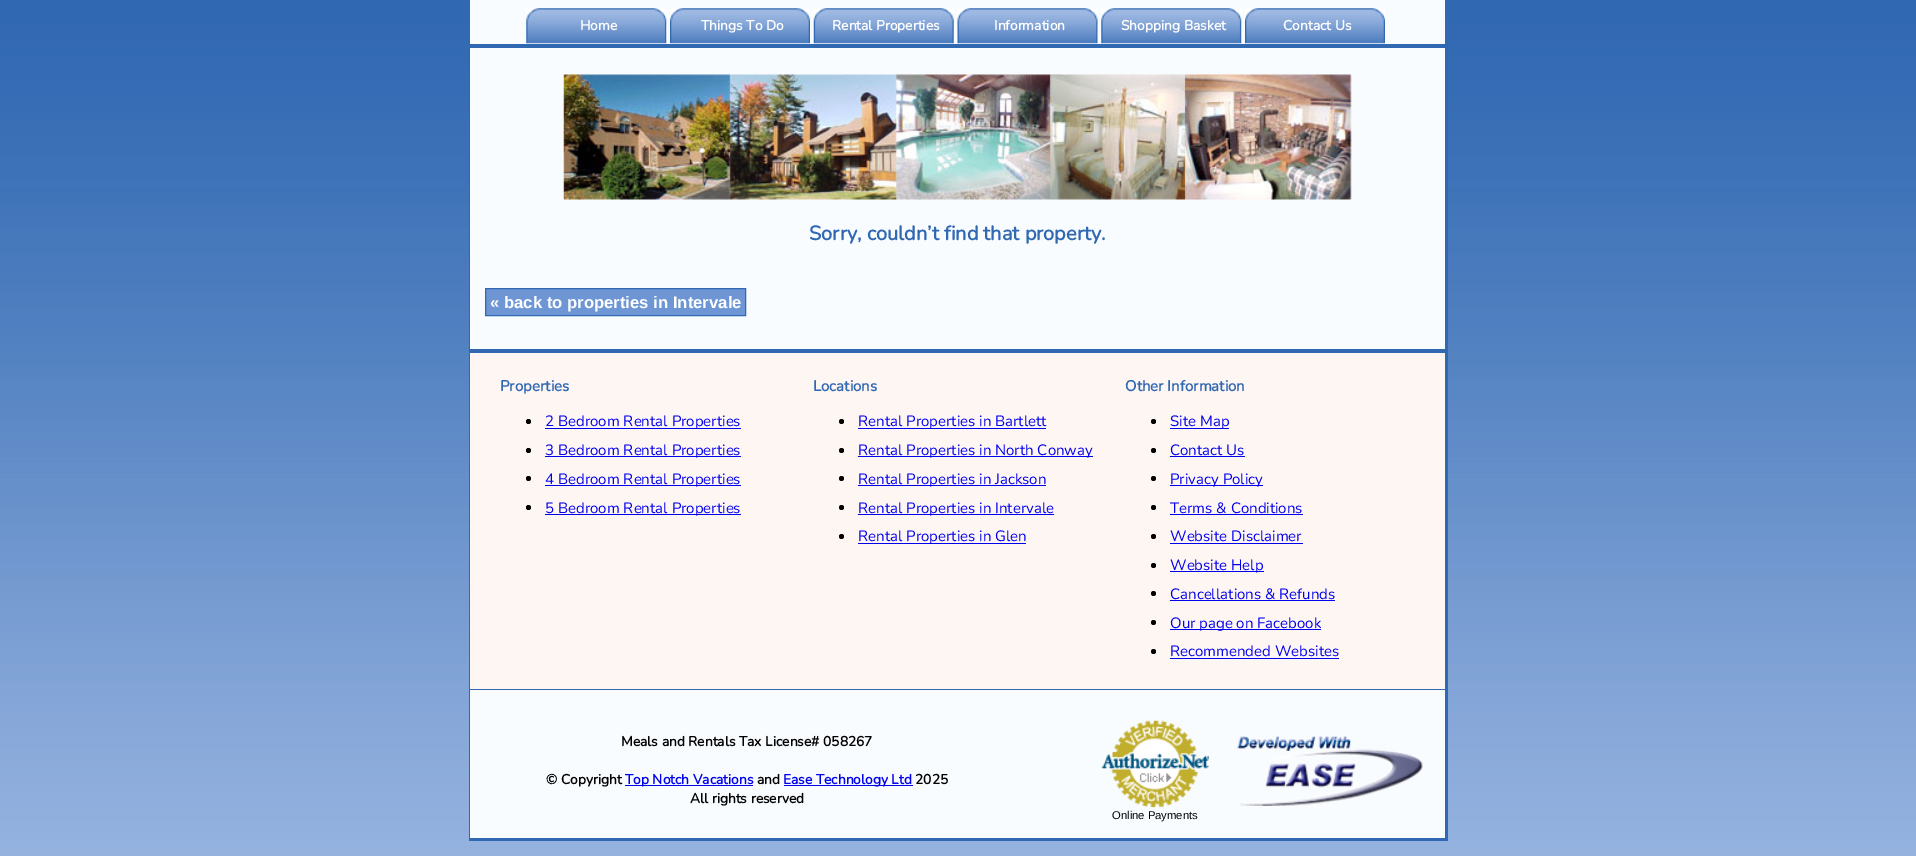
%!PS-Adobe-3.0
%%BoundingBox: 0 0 1916 856
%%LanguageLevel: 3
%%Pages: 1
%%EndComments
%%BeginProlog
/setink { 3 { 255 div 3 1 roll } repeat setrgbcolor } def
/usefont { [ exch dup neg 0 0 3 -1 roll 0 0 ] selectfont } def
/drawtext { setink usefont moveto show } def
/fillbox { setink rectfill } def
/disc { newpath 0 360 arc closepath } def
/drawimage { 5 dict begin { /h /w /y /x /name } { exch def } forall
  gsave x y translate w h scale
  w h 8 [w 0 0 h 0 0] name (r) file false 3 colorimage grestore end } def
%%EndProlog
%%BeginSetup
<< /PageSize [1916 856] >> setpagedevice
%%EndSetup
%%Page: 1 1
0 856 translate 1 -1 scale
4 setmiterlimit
0 0 1916 856 255 255 255 fillbox
(assets/img1.rgb) 0 0 1916 856 drawimage
470 0 975 838 249 252 255 fillbox
1445 41 3 799 48 104 178 fillbox
469 838 979 3 48 104 178 fillbox
469 41 1 799 48 104 178 fillbox
470 44 975 4 48 104 178 fillbox
(assets/img2.rgb) 526 8 141 36 drawimage
(Home) 580 30 /Nunito-Bold 13.75 255 255 255 drawtext
(assets/img3.rgb) 670 8 140 36 drawimage
(Things To Do) 701 30 /Nunito-Bold 13.75 255 255 255 drawtext
(assets/img4.rgb) 813 8 141 36 drawimage
(Rental Properties) 832 30 /Nunito-Bold 13.75 255 255 255 drawtext
(assets/img5.rgb) 957 8 141 36 drawimage
(Information) 994 30 /Nunito-Bold 13.75 255 255 255 drawtext
(assets/img6.rgb) 1101 8 141 36 drawimage
(Shopping Basket) 1121 30 /Nunito-Bold 13.75 255 255 255 drawtext
(assets/img7.rgb) 1245 8 140 36 drawimage
(Contact Us) 1283 30 /Nunito-Bold 13.75 255 255 255 drawtext
(assets/img8.rgb) 563 74 789 126 drawimage
(Sorry, couldn’t find that property.) 809 240 /Nunito-Bold 20 48 104 178 drawtext
110 150 213 setink
485.5 288.5 moveto 745.5 288.5 lineto 745.5 315.5 lineto 485.5 315.5 lineto closepath gsave fill grestore
48 104 178 setink
stroke
(« back to properties in Intervale) 490 308 /LiberationSans-Bold 16.7 255 255 255 drawtext
470 349 975 4 48 104 178 fillbox
470 353 975 336 254 246 243 fillbox
470 689 975 1 48 104 178 fillbox
(Properties) 500 391 /Nunito-Bold 15 48 104 178 drawtext
0 0 0 setink
528.5 421.5 2.5 disc fill
545 428 196 1 0 0 238 fillbox
(2 Bedroom Rental Properties) 545 426 /Nunito-ExtraLight 15 0 0 238 drawtext
0 0 0 setink
528.5 450.5 2.5 disc fill
545 456 196 1 0 0 238 fillbox
(3 Bedroom Rental Properties) 545 455 /Nunito-ExtraLight 15 0 0 238 drawtext
0 0 0 setink
528.5 478.5 2.5 disc fill
545 485 196 1 0 0 238 fillbox
(4 Bedroom Rental Properties) 545 484 /Nunito-ExtraLight 15 0 0 238 drawtext
0 0 0 setink
528.5 507.5 2.5 disc fill
545 514 196 1 0 0 238 fillbox
(5 Bedroom Rental Properties) 545 513 /Nunito-ExtraLight 15 0 0 238 drawtext
(Locations) 813 391 /Nunito-Bold 15 48 104 178 drawtext
0 0 0 setink
841.5 421.5 2.5 disc fill
858 428 188 1 0 0 238 fillbox
(Rental Properties in Bartlett) 858 426 /Nunito-ExtraLight 15 0 0 238 drawtext
0 0 0 setink
841.5 450.5 2.5 disc fill
858 456 235 1 0 0 238 fillbox
(Rental Properties in North Conway) 858 455 /Nunito-ExtraLight 15 0 0 238 drawtext
0 0 0 setink
841.5 478.5 2.5 disc fill
858 485 188 1 0 0 238 fillbox
(Rental Properties in Jackson) 858 484 /Nunito-ExtraLight 15 0 0 238 drawtext
0 0 0 setink
841.5 507.5 2.5 disc fill
858 514 196 1 0 0 238 fillbox
(Rental Properties in Intervale) 858 513 /Nunito-ExtraLight 15 0 0 238 drawtext
0 0 0 setink
841.5 536.5 2.5 disc fill
858 543 168 1 0 0 238 fillbox
(Rental Properties in Glen) 858 541 /Nunito-ExtraLight 15 0 0 238 drawtext
(Other Information) 1125 391 /Nunito-Bold 15 48 104 178 drawtext
0 0 0 setink
1153.5 421.5 2.5 disc fill
1170 428 59 1 0 0 238 fillbox
(Site Map) 1170 426 /Nunito-ExtraLight 15 0 0 238 drawtext
0 0 0 setink
1153.5 450.5 2.5 disc fill
(Contact Us) 1170 455 /Nunito-ExtraLight 15 0 0 238 drawtext
1170 456 75 1 0 0 238 fillbox
0 0 0 setink
1153.5 478.5 2.5 disc fill
1170 485 93 1 0 0 238 fillbox
(Privacy Policy) 1170 484 /Nunito-ExtraLight 15 0 0 238 drawtext
0 0 0 setink
1153.5 507.5 2.5 disc fill
(Terms & Conditions) 1170 513 /Nunito-ExtraLight 15 0 0 238 drawtext
1170 514 133 1 0 0 238 fillbox
0 0 0 setink
1153.5 536.5 2.5 disc fill
(Website Disclaimer) 1170 541 /Nunito-ExtraLight 15 0 0 238 drawtext
1170 543 133 1 0 0 238 fillbox
0 0 0 setink
1153.5 565.5 2.5 disc fill
1170 571 94 1 0 0 238 fillbox
(Website Help) 1170 570 /Nunito-ExtraLight 15 0 0 238 drawtext
0 0 0 setink
1153.5 593.5 2.5 disc fill
(Cancellations & Refunds) 1170 599 /Nunito-ExtraLight 15 0 0 238 drawtext
1170 600 165 1 0 0 238 fillbox
0 0 0 setink
1153.5 622.5 2.5 disc fill
1170 629 151 1 0 0 238 fillbox
(Our page on Facebook) 1170 628 /Nunito-ExtraLight 15 0 0 238 drawtext
0 0 0 setink
1153.5 651.5 2.5 disc fill
(Recommended Websites) 1170 656 /Nunito-ExtraLight 15 0 0 238 drawtext
1170 658 169 1 0 0 238 fillbox
(Meals and Rentals Tax License# 058267) 621 746 /Nunito-Bold 13.75 0 0 0 drawtext
(© Copyright) 546 784 /Nunito-Bold 13.75 0 0 0 drawtext
625 785 128 1 0 0 238 fillbox
(Top Notch Vacations) 625 784 /Nunito-Bold 13.75 0 0 238 drawtext
(and) 757 784 /Nunito-Bold 13.75 0 0 0 drawtext
784 785 129 1 0 0 238 fillbox
(Ease Technology Ltd) 783 784 /Nunito-Bold 13.75 0 0 238 drawtext
(2025) 915 784 /Nunito-Bold 13.75 0 0 0 drawtext
(All rights reserved) 690 803 /Nunito-Bold 13.75 0 0 0 drawtext
(assets/img9.rgb) 1237 735 186 71 drawimage
(assets/img10.rgb) 1100 720 110 88 drawimage
(Online Payments) 1112 819 /LiberationSans-Regular 11.25 0 0 0 drawtext
showpage
%%EOF
